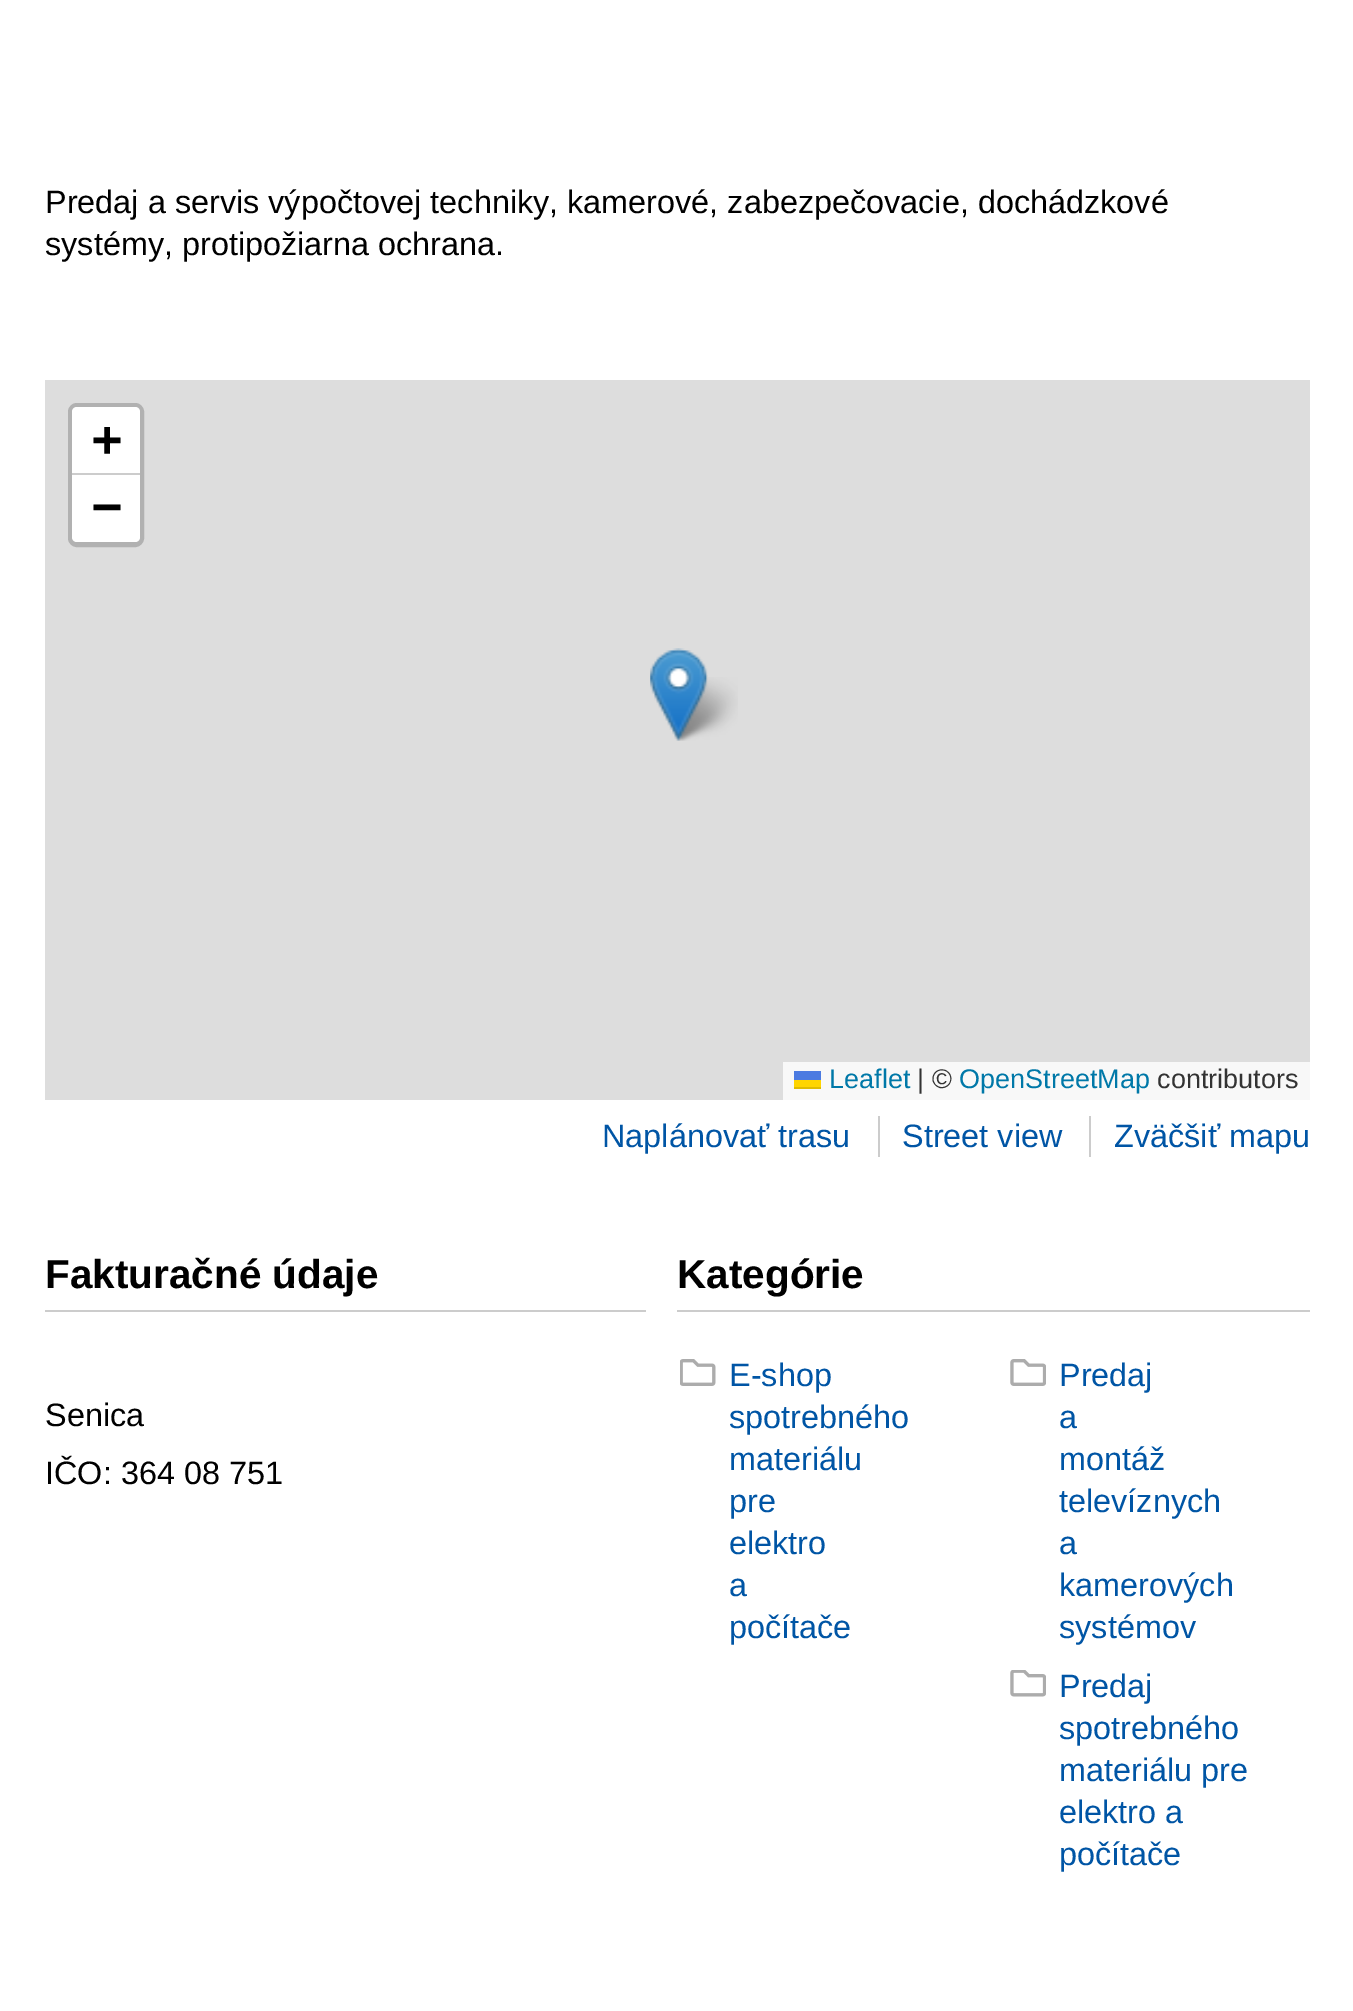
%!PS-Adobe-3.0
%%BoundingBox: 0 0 1353 2011
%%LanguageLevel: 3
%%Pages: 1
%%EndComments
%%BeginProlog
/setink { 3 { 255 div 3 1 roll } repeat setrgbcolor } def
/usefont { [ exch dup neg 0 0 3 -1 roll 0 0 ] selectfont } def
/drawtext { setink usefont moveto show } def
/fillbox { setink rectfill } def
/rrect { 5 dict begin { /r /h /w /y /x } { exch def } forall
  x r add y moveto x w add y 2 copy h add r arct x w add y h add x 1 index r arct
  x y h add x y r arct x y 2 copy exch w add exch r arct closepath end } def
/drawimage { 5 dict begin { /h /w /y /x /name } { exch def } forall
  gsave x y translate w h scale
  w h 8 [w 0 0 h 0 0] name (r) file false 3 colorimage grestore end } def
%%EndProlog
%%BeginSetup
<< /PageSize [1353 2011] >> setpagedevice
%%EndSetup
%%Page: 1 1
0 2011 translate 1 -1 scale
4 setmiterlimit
0 0 1353 2011 255 255 255 fillbox
(Predaj a servis výpočtovej techniky, kamerové, zabezpečovacie, dochádzkové) 45 213 /LiberationSans-Regular 32.4 0 0 0 drawtext
(systémy, protipožiarna ochrana.) 45 255 /LiberationSans-Regular 32.4 0 0 0 drawtext
45 380 1265 720 221 221 221 fillbox
177 177 177 setink
5 setlinewidth
70.5 405.5 71 139 6.5 rrect stroke
255 255 255 setink
77 407 moveto 135 407 lineto 138 407 140 409 140 412 curveto 140 475 lineto 72 475 lineto 72 412 lineto 72 409 74 407 77 407 curveto closepath fill
72 473 68 2 204 204 204 fillbox
(+) 92 456 /DejaVuSansMono-Bold 50 0 0 0 drawtext
255 255 255 setink
72 475 moveto 140 475 lineto 140 537 lineto 140 540 138 542 135 542 curveto 77 542 lineto 74 542 72 540 72 537 curveto closepath fill
(−) 92 523 /DejaVuSansMono-Bold 50 0 0 0 drawtext
783 1062 527 38 248 248 248 fillbox
(Leaflet) 829 1088 /LiberationSans-Regular 27 0 120 168 drawtext
794 1071 27 9 76 123 225 fillbox
794 1080 27 7 255 213 0 fillbox
794 1087 27 2 224 188 0 fillbox
(| ©) 917 1088 /LiberationSans-Regular 27 51 51 51 drawtext
(OpenStreetMap) 959 1088 /LiberationSans-Regular 27 0 120 168 drawtext
(contributors) 1157 1088 /LiberationSans-Regular 27 51 51 51 drawtext
(assets/img2.rgb) 670 677 68 64 drawimage
(assets/img1.rgb) 650 648 58 93 drawimage
(Naplánovať trasu) 602 1147 /LiberationSans-Regular 32.4 0 85 165 drawtext
878 1116 2 41 204 204 204 fillbox
(Street view) 902 1147 /LiberationSans-Regular 32.4 0 85 165 drawtext
1089 1116 2 41 204 204 204 fillbox
(Zväčšiť mapu) 1114 1147 /LiberationSans-Regular 32.4 0 85 165 drawtext
45 1310 601 2 204 204 204 fillbox
(Fakturačné údaje) 45 1288 /LiberationSans-Bold 40.5 0 0 0 drawtext
(Senica) 45 1426 /LiberationSans-Regular 32.4 0 0 0 drawtext
(IČO: 364 08 751) 45 1484 /LiberationSans-Regular 32.4 0 0 0 drawtext
677 1310 633 2 204 204 204 fillbox
(Kategórie) 677 1288 /LiberationSans-Bold 40.5 0 0 0 drawtext
(assets/img3.rgb) 680 1359 36 27 drawimage
(E-shop) 729 1386 /LiberationSans-Regular 32.4 0 85 165 drawtext
(spotrebného) 729 1428 /LiberationSans-Regular 32.4 0 85 165 drawtext
(materiálu) 729 1470 /LiberationSans-Regular 32.4 0 85 165 drawtext
(pre) 729 1512 /LiberationSans-Regular 32.4 0 85 165 drawtext
(elektro) 729 1554 /LiberationSans-Regular 32.4 0 85 165 drawtext
(a) 729 1596 /LiberationSans-Regular 32.4 0 85 165 drawtext
(počítače) 729 1638 /LiberationSans-Regular 32.4 0 85 165 drawtext
(assets/img4.rgb) 1010 1359 36 27 drawimage
(Predaj) 1059 1386 /LiberationSans-Regular 32.4 0 85 165 drawtext
(a) 1059 1428 /LiberationSans-Regular 32.4 0 85 165 drawtext
(montáž) 1059 1470 /LiberationSans-Regular 32.4 0 85 165 drawtext
(televíznych) 1059 1512 /LiberationSans-Regular 32.4 0 85 165 drawtext
(a) 1059 1554 /LiberationSans-Regular 32.4 0 85 165 drawtext
(kamerových) 1059 1596 /LiberationSans-Regular 32.4 0 85 165 drawtext
(systémov) 1059 1638 /LiberationSans-Regular 32.4 0 85 165 drawtext
(assets/img5.rgb) 1010 1670 36 27 drawimage
(Predaj) 1059 1697 /LiberationSans-Regular 32.4 0 85 165 drawtext
(spotrebného) 1059 1739 /LiberationSans-Regular 32.4 0 85 165 drawtext
(materiálu pre) 1059 1781 /LiberationSans-Regular 32.4 0 85 165 drawtext
(elektro a) 1059 1823 /LiberationSans-Regular 32.4 0 85 165 drawtext
(počítače) 1059 1865 /LiberationSans-Regular 32.4 0 85 165 drawtext
showpage
%%EOF
